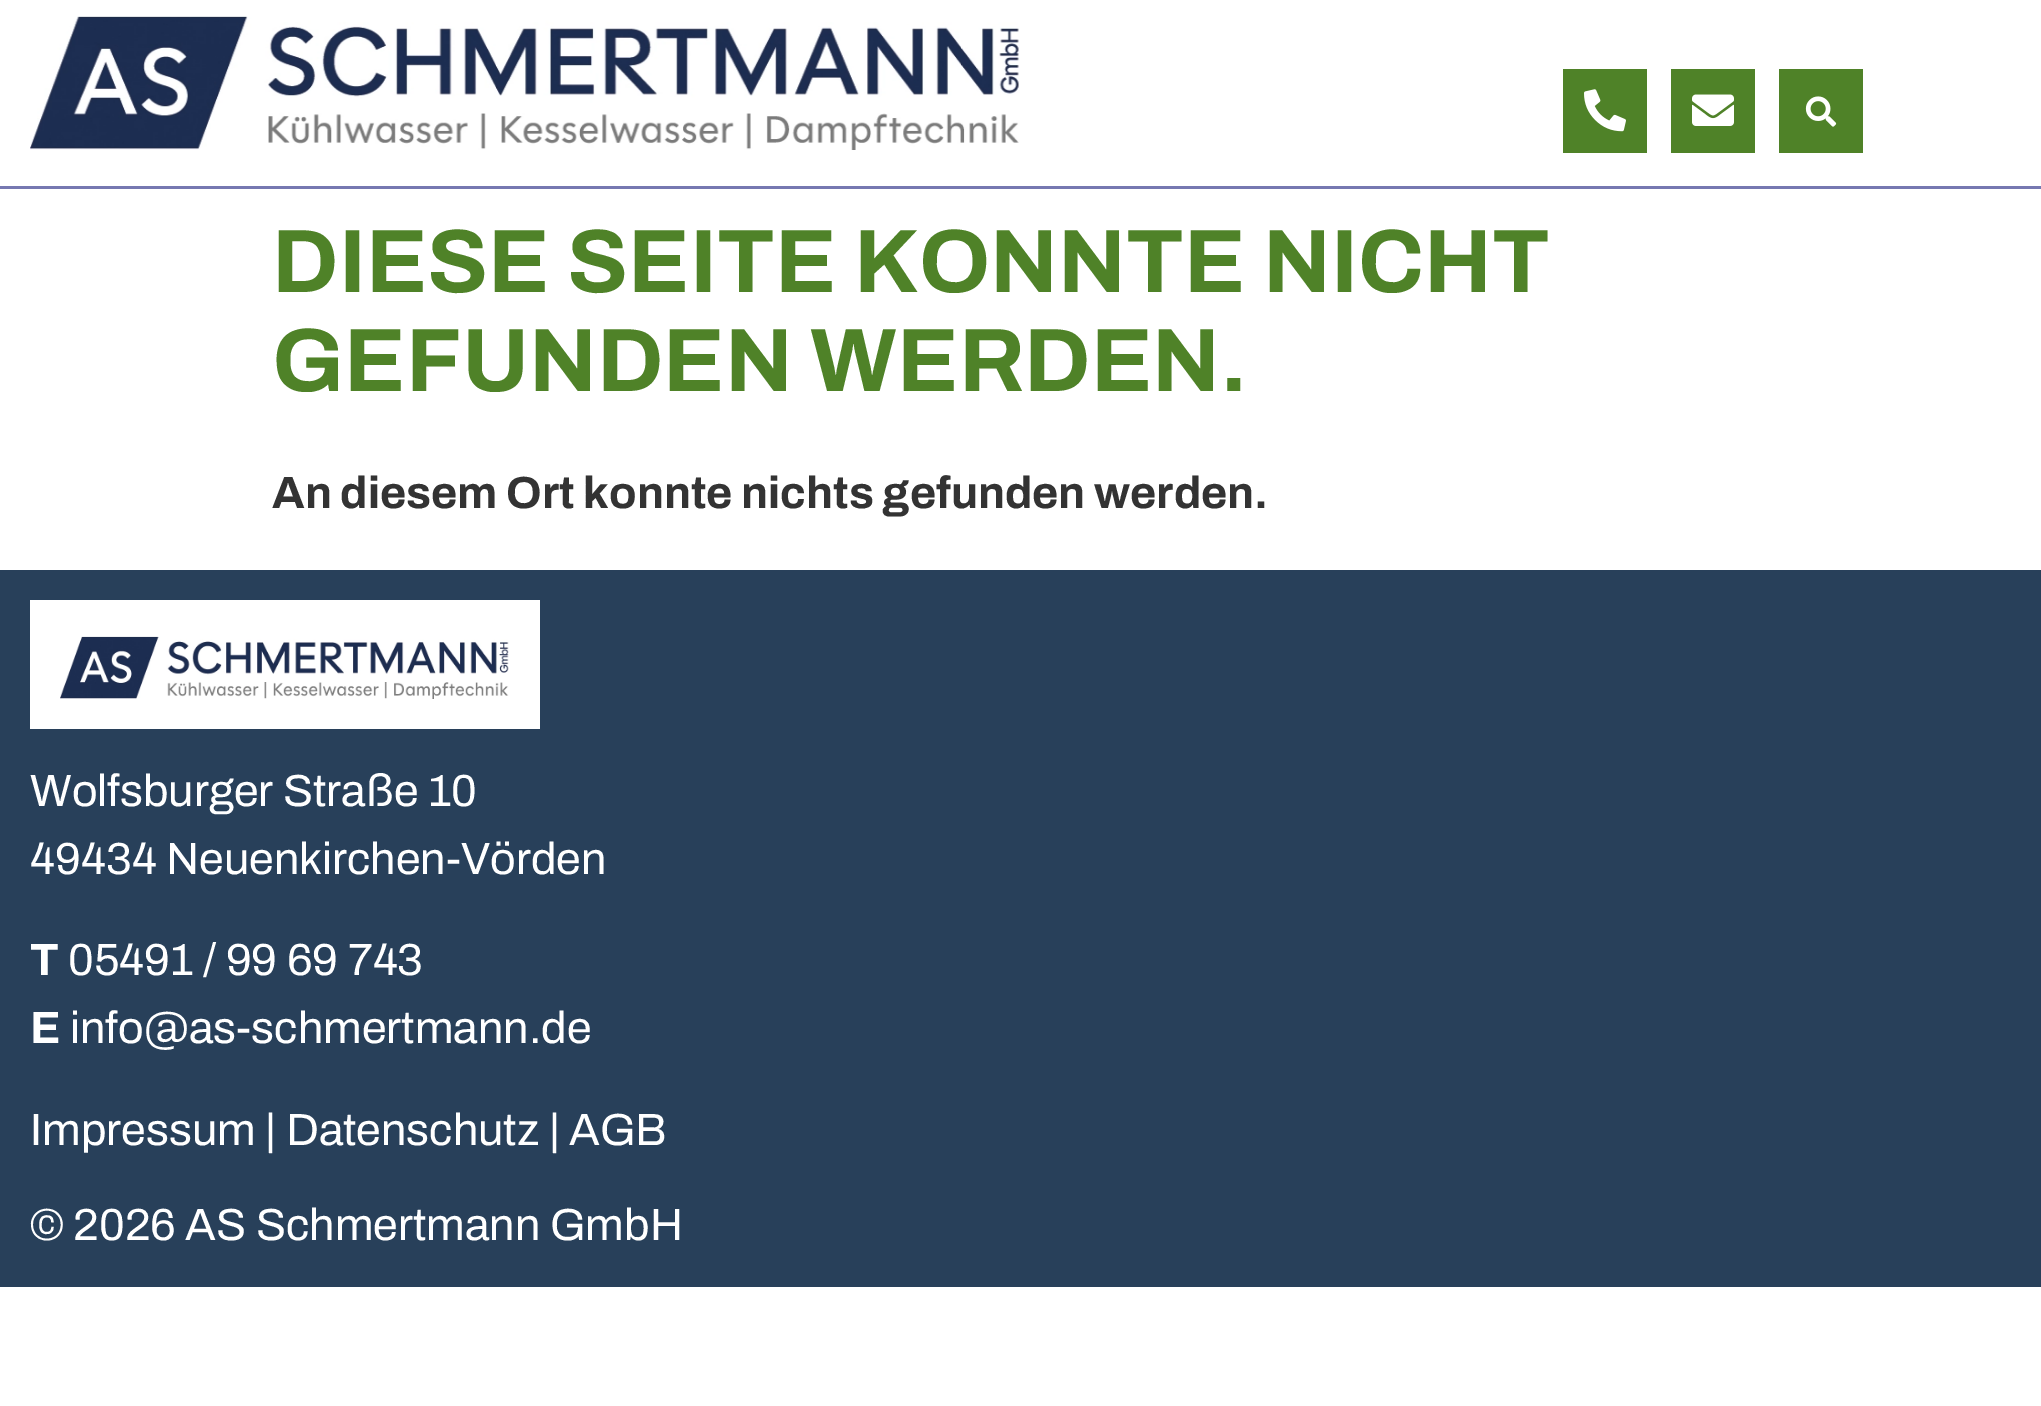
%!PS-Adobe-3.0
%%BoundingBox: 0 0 2041 1406
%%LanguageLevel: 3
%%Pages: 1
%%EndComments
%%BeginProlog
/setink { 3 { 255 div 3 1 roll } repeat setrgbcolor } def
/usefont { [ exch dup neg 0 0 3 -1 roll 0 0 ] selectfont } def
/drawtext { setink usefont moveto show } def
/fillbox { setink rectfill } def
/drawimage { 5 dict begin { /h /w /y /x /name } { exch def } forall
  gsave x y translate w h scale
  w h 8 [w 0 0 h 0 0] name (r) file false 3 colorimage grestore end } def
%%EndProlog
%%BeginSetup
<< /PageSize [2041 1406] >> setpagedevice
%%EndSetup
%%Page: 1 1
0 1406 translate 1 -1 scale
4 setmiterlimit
0 0 2041 1406 255 255 255 fillbox
0 186 2041 3 118 120 177 fillbox
(assets/img1.rgb) 30 16 990 134 drawimage
1563 69 84 84 79 130 40 fillbox
(assets/img2.rgb) 1584 89 42 43 drawimage
1671 69 84 84 79 130 40 fillbox
(assets/img3.rgb) 1692 94 42 32 drawimage
1779 69 84 84 79 130 40 fillbox
(assets/img4.rgb) 1805 96 32 31 drawimage
(DIESE SEITE KONNTE NICHT) 272 292 /Archivo-SemiBold 90 79 130 40 drawtext
(GEFUNDEN WERDEN.) 272 391 /Archivo-SemiBold 90 79 130 40 drawtext
(An diesem Ort konnte nichts gefunden werden.) 272 508 /Archivo-SemiBold 45 51 51 51 drawtext
0 570 2041 717 40 64 90 fillbox
30 600 510 129 255 255 255 fillbox
(assets/img5.rgb) 60 636 449 63 drawimage
(Wolfsburger Straße 10) 30 806 /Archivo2-SemiBold 45 255 255 255 drawtext
(49434 Neuenkirchen-Vörden) 30 874 /Archivo2-SemiBold 45 255 255 255 drawtext
(T) 30 975 /Archivo-SemiBold 45 255 255 255 drawtext
(05491 / 99 69 743) 68 975 /Archivo2-SemiBold 45 255 255 255 drawtext
(E) 30 1043 /Archivo-SemiBold 45 255 255 255 drawtext
(info@as-schmertmann.de) 70 1043 /Archivo2-SemiBold 45 255 255 255 drawtext
(Impressum | Datenschutz | AGB) 30 1145 /Archivo2-SemiBold 45 255 255 255 drawtext
(© 2026 AS Schmertmann GmbH) 30 1240 /Archivo2-SemiBold 45 255 255 255 drawtext
showpage
%%EOF
